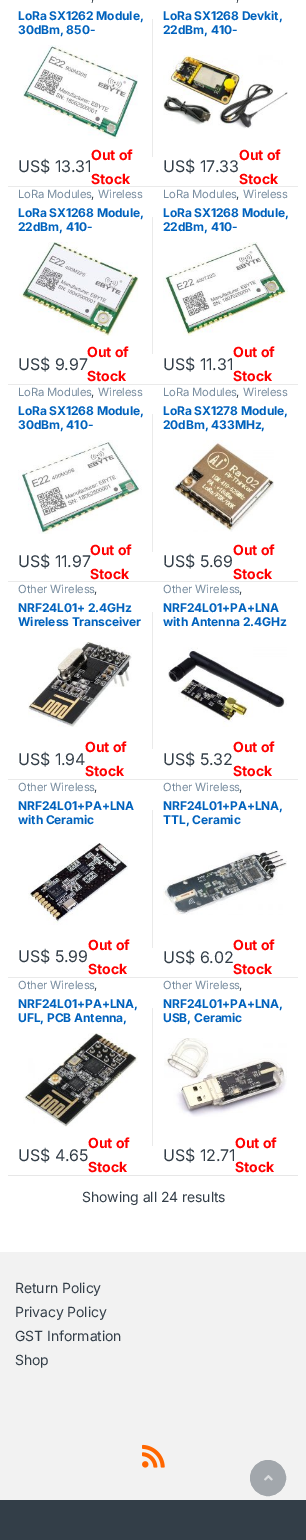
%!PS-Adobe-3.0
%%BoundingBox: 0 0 306 1540
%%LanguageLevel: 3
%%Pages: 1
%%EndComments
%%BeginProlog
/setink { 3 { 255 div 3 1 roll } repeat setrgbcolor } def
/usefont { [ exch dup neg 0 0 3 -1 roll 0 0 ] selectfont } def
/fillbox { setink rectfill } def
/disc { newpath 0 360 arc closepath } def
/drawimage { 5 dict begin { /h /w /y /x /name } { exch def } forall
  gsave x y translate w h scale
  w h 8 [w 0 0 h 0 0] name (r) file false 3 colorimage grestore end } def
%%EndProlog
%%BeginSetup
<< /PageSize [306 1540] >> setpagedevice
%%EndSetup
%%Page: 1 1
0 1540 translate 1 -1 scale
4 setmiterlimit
0 0 306 1540 255 255 255 fillbox
8 186 290 1 234 234 234 fillbox
/Inter-Regular 11.25 usefont
51 62 72 setink
91 1 moveto -0.1 0 (,) ashow
/Inter-Bold 12 usefont
0 98 189 setink
18 20 moveto -0.1 0 (LoRa SX1262 Module,) ashow
18 34 moveto -0.1 0 (30dBm, 850-) ashow
(assets/img1.rgb) 23 45 115 94 drawimage
/Inter-Regular 16 usefont
51 62 72 setink
18 172 moveto -0.1 0 (US$ 13.31) ashow
/Inter-Bold 14 usefont
255 0 0 setink
91 160 moveto -0.1 0 (Out of) ashow
91 184 moveto -0.1 0 (Stock) ashow
152 19 1 138 234 234 234 fillbox
/Inter-Regular 11.25 usefont
51 62 72 setink
236 1 moveto -0.1 0 (,) ashow
/Inter-Bold 12 usefont
0 98 189 setink
163 20 moveto -0.1 0 (LoRa SX1268 Devkit,) ashow
163 34 moveto -0.1 0 (22dBm, 410-) ashow
(assets/img2.rgb) 163 55 125 74 drawimage
/Inter-Regular 16 usefont
51 62 72 setink
163 172 moveto -0.1 0 (US$ 17.33) ashow
/Inter-Bold 14 usefont
255 0 0 setink
239 160 moveto -0.1 0 (Out of) ashow
239 184 moveto -0.1 0 (Stock) ashow
8 384 290 1 234 234 234 fillbox
/Inter-Regular 11.25 usefont
118 139 158 setink
18 198 moveto -0.1 0 (LoRa Modules) ashow
51 62 72 setink
91 198 moveto -0.1 0 (,) ashow
118 139 158 setink
98 198 moveto -0.1 0 (Wireless) ashow
/Inter-Bold 12 usefont
0 98 189 setink
18 217 moveto -0.1 0 (LoRa SX1268 Module,) ashow
18 231 moveto -0.1 0 (22dBm, 410-) ashow
(assets/img3.rgb) 19 242 120 94 drawimage
/Inter-Regular 16 usefont
51 62 72 setink
18 370 moveto -0.1 0 (US$ 9.97) ashow
/Inter-Bold 14 usefont
255 0 0 setink
87 357 moveto -0.1 0 (Out of) ashow
87 381 moveto -0.1 0 (Stock) ashow
152 217 1 137 234 234 234 fillbox
/Inter-Regular 11.25 usefont
118 139 158 setink
163 198 moveto -0.1 0 (LoRa Modules) ashow
51 62 72 setink
236 198 moveto -0.1 0 (,) ashow
118 139 158 setink
243 198 moveto -0.1 0 (Wireless) ashow
/Inter-Bold 12 usefont
0 98 189 setink
163 217 moveto -0.1 0 (LoRa SX1268 Module,) ashow
163 231 moveto -0.1 0 (22dBm, 410-) ashow
(assets/img4.rgb) 163 242 125 94 drawimage
/Inter-Regular 16 usefont
51 62 72 setink
163 370 moveto -0.1 0 (US$ 11.31) ashow
/Inter-Bold 14 usefont
255 0 0 setink
233 357 moveto -0.1 0 (Out of) ashow
233 381 moveto -0.1 0 (Stock) ashow
8 581 290 1 234 234 234 fillbox
/Inter-Regular 11.25 usefont
118 139 158 setink
18 396 moveto -0.1 0 (LoRa Modules) ashow
51 62 72 setink
91 396 moveto -0.1 0 (,) ashow
118 139 158 setink
98 396 moveto -0.1 0 (Wireless) ashow
/Inter-Bold 12 usefont
0 98 189 setink
18 415 moveto -0.1 0 (LoRa SX1268 Module,) ashow
18 429 moveto -0.1 0 (30dBm, 410-) ashow
(assets/img5.rgb) 18 440 124 94 drawimage
/Inter-Regular 16 usefont
51 62 72 setink
18 567 moveto -0.1 0 (US$ 11.97) ashow
/Inter-Bold 14 usefont
255 0 0 setink
90 555 moveto -0.1 0 (Out of) ashow
90 579 moveto -0.1 0 (Stock) ashow
152 414 1 138 234 234 234 fillbox
/Inter-Regular 11.25 usefont
118 139 158 setink
163 396 moveto -0.1 0 (LoRa Modules) ashow
51 62 72 setink
236 396 moveto -0.1 0 (,) ashow
118 139 158 setink
243 396 moveto -0.1 0 (Wireless) ashow
/Inter-Bold 12 usefont
0 98 189 setink
163 415 moveto -0.1 0 (LoRa SX1278 Module,) ashow
163 429 moveto -0.1 0 (20dBm, 433MHz,) ashow
(assets/img6.rgb) 173 440 101 92 drawimage
/Inter-Regular 16 usefont
51 62 72 setink
163 567 moveto -0.1 0 (US$ 5.69) ashow
/Inter-Bold 14 usefont
255 0 0 setink
233 555 moveto -0.1 0 (Out of) ashow
233 579 moveto -0.1 0 (Stock) ashow
8 779 290 1 234 234 234 fillbox
/Inter-Regular 11.25 usefont
118 139 158 setink
18 593 moveto -0.1 0 (Other Wireless) ashow
51 62 72 setink
94 593 moveto -0.1 0 (,) ashow
/Inter-Bold 12 usefont
0 98 189 setink
18 612 moveto -0.1 0 (NRF24L01+ 2.4GHz) ashow
18 626 moveto -0.1 0 (Wireless Transceiver) ashow
(assets/img7.rgb) 28 640 104 87 drawimage
/Inter-Regular 16 usefont
51 62 72 setink
18 765 moveto -0.1 0 (US$ 1.94) ashow
/Inter-Bold 14 usefont
255 0 0 setink
85 752 moveto -0.1 0 (Out of) ashow
85 776 moveto -0.1 0 (Stock) ashow
152 612 1 137 234 234 234 fillbox
/Inter-Regular 11.25 usefont
118 139 158 setink
163 593 moveto -0.1 0 (Other Wireless) ashow
51 62 72 setink
239 593 moveto -0.1 0 (,) ashow
/Inter-Bold 12 usefont
0 98 189 setink
163 612 moveto -0.1 0 (NRF24L01+PA+LNA) ashow
163 626 moveto -0.1 0 (with Antenna 2.4GHz) ashow
(assets/img8.rgb) 168 647 119 80 drawimage
/Inter-Regular 16 usefont
51 62 72 setink
163 765 moveto -0.1 0 (US$ 5.32) ashow
/Inter-Bold 14 usefont
255 0 0 setink
233 752 moveto -0.1 0 (Out of) ashow
233 776 moveto -0.1 0 (Stock) ashow
8 977 290 1 234 234 234 fillbox
/Inter-Regular 11.25 usefont
118 139 158 setink
18 791 moveto -0.1 0 (Other Wireless) ashow
51 62 72 setink
94 791 moveto -0.1 0 (,) ashow
/Inter-Bold 12 usefont
0 98 189 setink
18 810 moveto -0.1 0 (NRF24L01+PA+LNA) ashow
18 824 moveto -0.1 0 (with Ceramic) ashow
(assets/img9.rgb) 28 843 100 82 drawimage
/Inter-Regular 16 usefont
51 62 72 setink
18 962 moveto -0.1 0 (US$ 5.99) ashow
/Inter-Bold 14 usefont
255 0 0 setink
88 950 moveto -0.1 0 (Out of) ashow
88 974 moveto -0.1 0 (Stock) ashow
152 810 1 138 234 234 234 fillbox
/Inter-Regular 11.25 usefont
118 139 158 setink
163 791 moveto -0.1 0 (Other Wireless) ashow
51 62 72 setink
239 791 moveto -0.1 0 (,) ashow
/Inter-Bold 12 usefont
0 98 189 setink
163 810 moveto -0.1 0 (NRF24L01+PA+LNA,) ashow
163 824 moveto -0.1 0 (TTL, Ceramic) ashow
(assets/img10.rgb) 163 850 124 65 drawimage
/Inter-Regular 16 usefont
51 62 72 setink
163 963 moveto -0.1 0 (US$ 6.02) ashow
/Inter-Bold 14 usefont
255 0 0 setink
233 950 moveto -0.1 0 (Out of) ashow
233 974 moveto -0.1 0 (Stock) ashow
/Inter-Regular 11.25 usefont
118 139 158 setink
18 989 moveto -0.1 0 (Other Wireless) ashow
51 62 72 setink
94 989 moveto -0.1 0 (,) ashow
/Inter-Bold 12 usefont
0 98 189 setink
18 1008 moveto -0.1 0 (NRF24L01+PA+LNA,) ashow
18 1022 moveto -0.1 0 (UFL, PCB Antenna,) ashow
(assets/img11.rgb) 23 1033 115 94 drawimage
/Inter-Regular 16 usefont
51 62 72 setink
18 1161 moveto -0.1 0 (US$ 4.65) ashow
/Inter-Bold 14 usefont
255 0 0 setink
88 1148 moveto -0.1 0 (Out of) ashow
88 1172 moveto -0.1 0 (Stock) ashow
152 1008 1 138 234 234 234 fillbox
/Inter-Regular 11.25 usefont
118 139 158 setink
163 989 moveto -0.1 0 (Other Wireless) ashow
51 62 72 setink
239 989 moveto -0.1 0 (,) ashow
/Inter-Bold 12 usefont
0 98 189 setink
163 1008 moveto -0.1 0 (NRF24L01+PA+LNA,) ashow
163 1022 moveto -0.1 0 (USB, Ceramic) ashow
(assets/img12.rgb) 164 1038 123 79 drawimage
/Inter-Regular 16 usefont
51 62 72 setink
163 1161 moveto -0.1 0 (US$ 12.71) ashow
/Inter-Bold 14 usefont
255 0 0 setink
235 1148 moveto -0.1 0 (Out of) ashow
235 1172 moveto -0.1 0 (Stock) ashow
8 1175 290 1 231 231 231 fillbox
/Inter-Regular 14 usefont
51 62 72 setink
82 1202 moveto -0.1 0 (Showing all 24 results) ashow
0 1252 306 248 242 242 242 fillbox
51 62 72 setink
15 1293 moveto -0.1 0 (Return Policy) ashow
15 1317 moveto -0.1 0 (Privacy Policy) ashow
15 1341 moveto -0.1 0 (GST Information) ashow
15 1365 moveto -0.1 0 (Shop) ashow
(assets/img13.rgb) 142 1444 23 24 drawimage
0 1500 306 40 51 62 72 fillbox
162 167 172 setink
268 1478 17.5 disc gsave fill grestore
stroke
(assets/img14.rgb) 264 1475 9 6 drawimage
showpage
%%EOF
